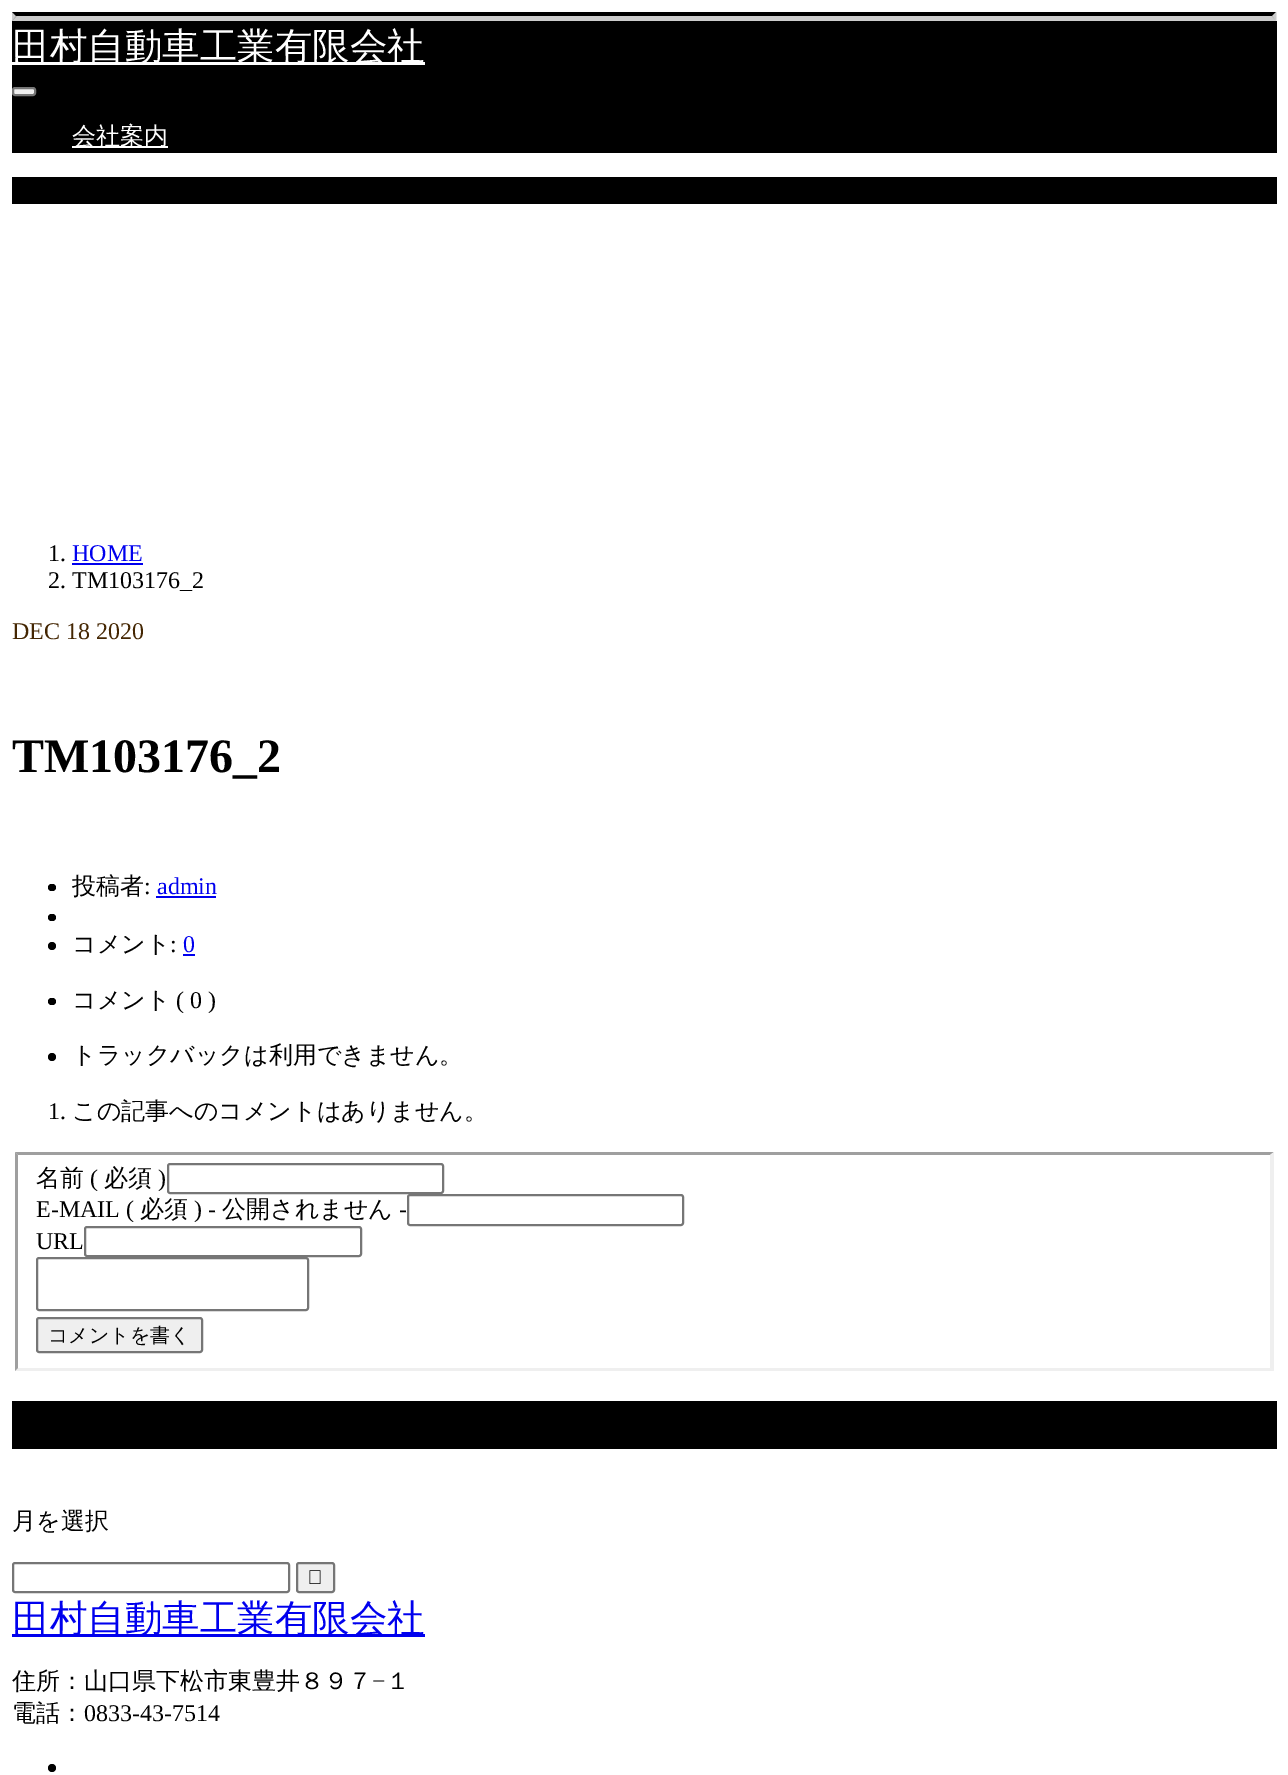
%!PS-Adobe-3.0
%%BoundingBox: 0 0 1288 1775
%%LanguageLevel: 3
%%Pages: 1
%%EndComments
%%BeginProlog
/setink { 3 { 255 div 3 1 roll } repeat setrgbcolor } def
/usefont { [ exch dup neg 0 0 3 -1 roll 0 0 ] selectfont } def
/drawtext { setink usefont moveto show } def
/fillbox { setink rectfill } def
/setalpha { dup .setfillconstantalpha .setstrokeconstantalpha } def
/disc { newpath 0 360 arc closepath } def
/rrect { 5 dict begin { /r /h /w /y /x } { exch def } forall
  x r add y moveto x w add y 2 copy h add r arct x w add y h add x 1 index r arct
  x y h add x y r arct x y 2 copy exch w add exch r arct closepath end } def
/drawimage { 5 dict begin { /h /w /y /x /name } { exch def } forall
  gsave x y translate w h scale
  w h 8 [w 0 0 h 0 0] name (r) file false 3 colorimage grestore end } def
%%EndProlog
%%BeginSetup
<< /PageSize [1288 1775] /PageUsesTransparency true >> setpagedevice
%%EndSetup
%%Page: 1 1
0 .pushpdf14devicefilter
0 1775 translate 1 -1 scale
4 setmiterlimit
0 0 1288 1775 255 255 255 fillbox
0 0 0 setink
12 12 moveto 1276 12 lineto 1272 16 lineto 16 16 lineto closepath fill
204 204 204 setink
1276.5 12 moveto 1276.5 21 lineto 1272 16.5 lineto closepath fill
0.2 setalpha
0 0 0 setink
1276 21 moveto 12 21 lineto 16 16 lineto 1272 16 lineto closepath fill
12 21 moveto 12 12 lineto 16.5 16.5 lineto closepath fill
1 setalpha
12 21 1265 132 0 0 0 fillbox
12 62 413 3 255 255 255 fillbox
(田村自動車工業有限会社) 12 59 /WenQuanYiZenHei-Medium 37.5 255 255 255 drawtext
239 239 239 setink
13 88 22 7 2 rrect gsave fill grestore
118 118 118 setink
2 setlinewidth
stroke
72 146 96 2 255 255 255 fillbox
(会社案内) 72 144 /WenQuanYiZenHei-Medium 24 255 255 255 drawtext
12 177 1265 27 0 0 0 fillbox
(1.) 48 561 /LiberationSerif-Regular 24 0 0 0 drawtext
(HOME) 72 561 /LiberationSerif-Regular 24 0 0 238 drawtext
72 563 71 2 0 0 238 fillbox
(2. TM103176_2) 48 588 /LiberationSerif-Regular 24 0 0 0 drawtext
(DEC 18 2020) 12 639 /LiberationSerif-Regular 24 68 38 2 drawtext
(TM103176_2) 12 772 /LiberationSerif-Bold 48 0 0 0 drawtext
48 884 8 7 3.5 rrect fill
(投稿者) 72 894 /WenQuanYiZenHei-Medium 24 0 0 0 drawtext
(:) 144 894 /LiberationSerif-Regular 24 0 0 0 drawtext
(admin) 157 894 /LiberationSerif-Regular 24 0 0 238 drawtext
156 896 60 2 0 0 238 fillbox
0 0 0 setink
48 914 8 7 3.5 rrect fill
52 946 4 disc fill
(コメント) 72 952 /WenQuanYiZenHei-Medium 24 0 0 0 drawtext
(:) 170 952 /LiberationSerif-Regular 24 0 0 0 drawtext
(0) 183 952 /LiberationSerif-Regular 24 0 0 238 drawtext
183 954 12 2 0 0 238 fillbox
0 0 0 setink
48 998 8 7 3.5 rrect fill
(コメント) 72 1008 /WenQuanYiZenHei-Medium 24 0 0 0 drawtext
(\( 0 \)) 176 1008 /LiberationSerif-Regular 24 0 0 0 drawtext
52 1057 4 disc fill
(トラックバックは利用できません。) 72 1063 /WenQuanYiZenHei-Medium 24 0 0 0 drawtext
(1.) 48 1119 /LiberationSerif-Regular 24 0 0 0 drawtext
(この記事へのコメントはありません。) 72 1119 /WenQuanYiZenHei-Medium 24 0 0 0 drawtext
159 159 159 setink
15 1152 moveto 1274 1152 lineto 1270 1155 lineto 18 1155 lineto closepath fill
239 239 239 setink
1274 1152 moveto 1274 1371 lineto 1270 1368 lineto 1270 1155 lineto closepath fill
1274 1371 moveto 15 1371 lineto 18 1368 lineto 1270 1368 lineto closepath fill
159 159 159 setink
15 1371 moveto 15 1152 lineto 18 1155 lineto 18 1368 lineto closepath fill
(名前) 36 1186 /WenQuanYiZenHei-Medium 24 0 0 0 drawtext
(\() 90 1186 /LiberationSerif-Regular 24 0 0 0 drawtext
(必須) 104 1186 /WenQuanYiZenHei-Medium 24 0 0 0 drawtext
(\)) 158 1186 /LiberationSerif-Regular 24 0 0 0 drawtext
118 118 118 setink
168 1164 275 29 2 rrect stroke
(E-MAIL \() 36 1217 /LiberationSerif-Regular 24 0 0 0 drawtext
(必須) 140 1217 /WenQuanYiZenHei-Medium 24 0 0 0 drawtext
(\) -) 194 1217 /LiberationSerif-Regular 24 0 0 0 drawtext
(公開されません) 222 1217 /WenQuanYiZenHei-Medium 24 0 0 0 drawtext
(-) 399 1217 /LiberationSerif-Regular 24 0 0 0 drawtext
118 118 118 setink
408 1195 275 30 2 rrect stroke
(URL) 36 1249 /LiberationSerif-Regular 24 0 0 0 drawtext
118 118 118 setink
85 1227 276 29 2 rrect stroke
37 1258 271 52 2 rrect stroke
239 239 239 setink
37 1318 165 34 2 rrect gsave fill grestore
118 118 118 setink
stroke
(コメントを書く) 48 1342 /WenQuanYiZenHei-Medium 20 0 0 0 drawtext
12 1401 1265 48 0 0 0 fillbox
(月を選択) 12 1529 /WenQuanYiZenHei-Medium 24 0 0 0 drawtext
118 118 118 setink
13 1563 276 29 2 rrect stroke
239 239 239 setink
297 1563 37 29 2 rrect gsave fill grestore
118 118 118 setink
stroke
(assets/img1.rgb) 309 1570 12 14 drawimage
12 1634 413 3 0 0 238 fillbox
(田村自動車工業有限会社) 12 1631 /WenQuanYiZenHei-Medium 37.5 0 0 238 drawtext
(住所：山口県下松市東豊井８９７) 12 1689 /WenQuanYiZenHei-Medium 24 0 0 0 drawtext
(−) 372 1689 /LiberationSerif-Regular 24 0 0 0 drawtext
(１) 386 1689 /WenQuanYiZenHei-Medium 24 0 0 0 drawtext
(電話：) 12 1721 /WenQuanYiZenHei-Medium 24 0 0 0 drawtext
(0833-43-7514) 84 1721 /LiberationSerif-Regular 24 0 0 0 drawtext
52 1768 4 disc fill
.poppdf14devicefilter showpage
%%EOF
